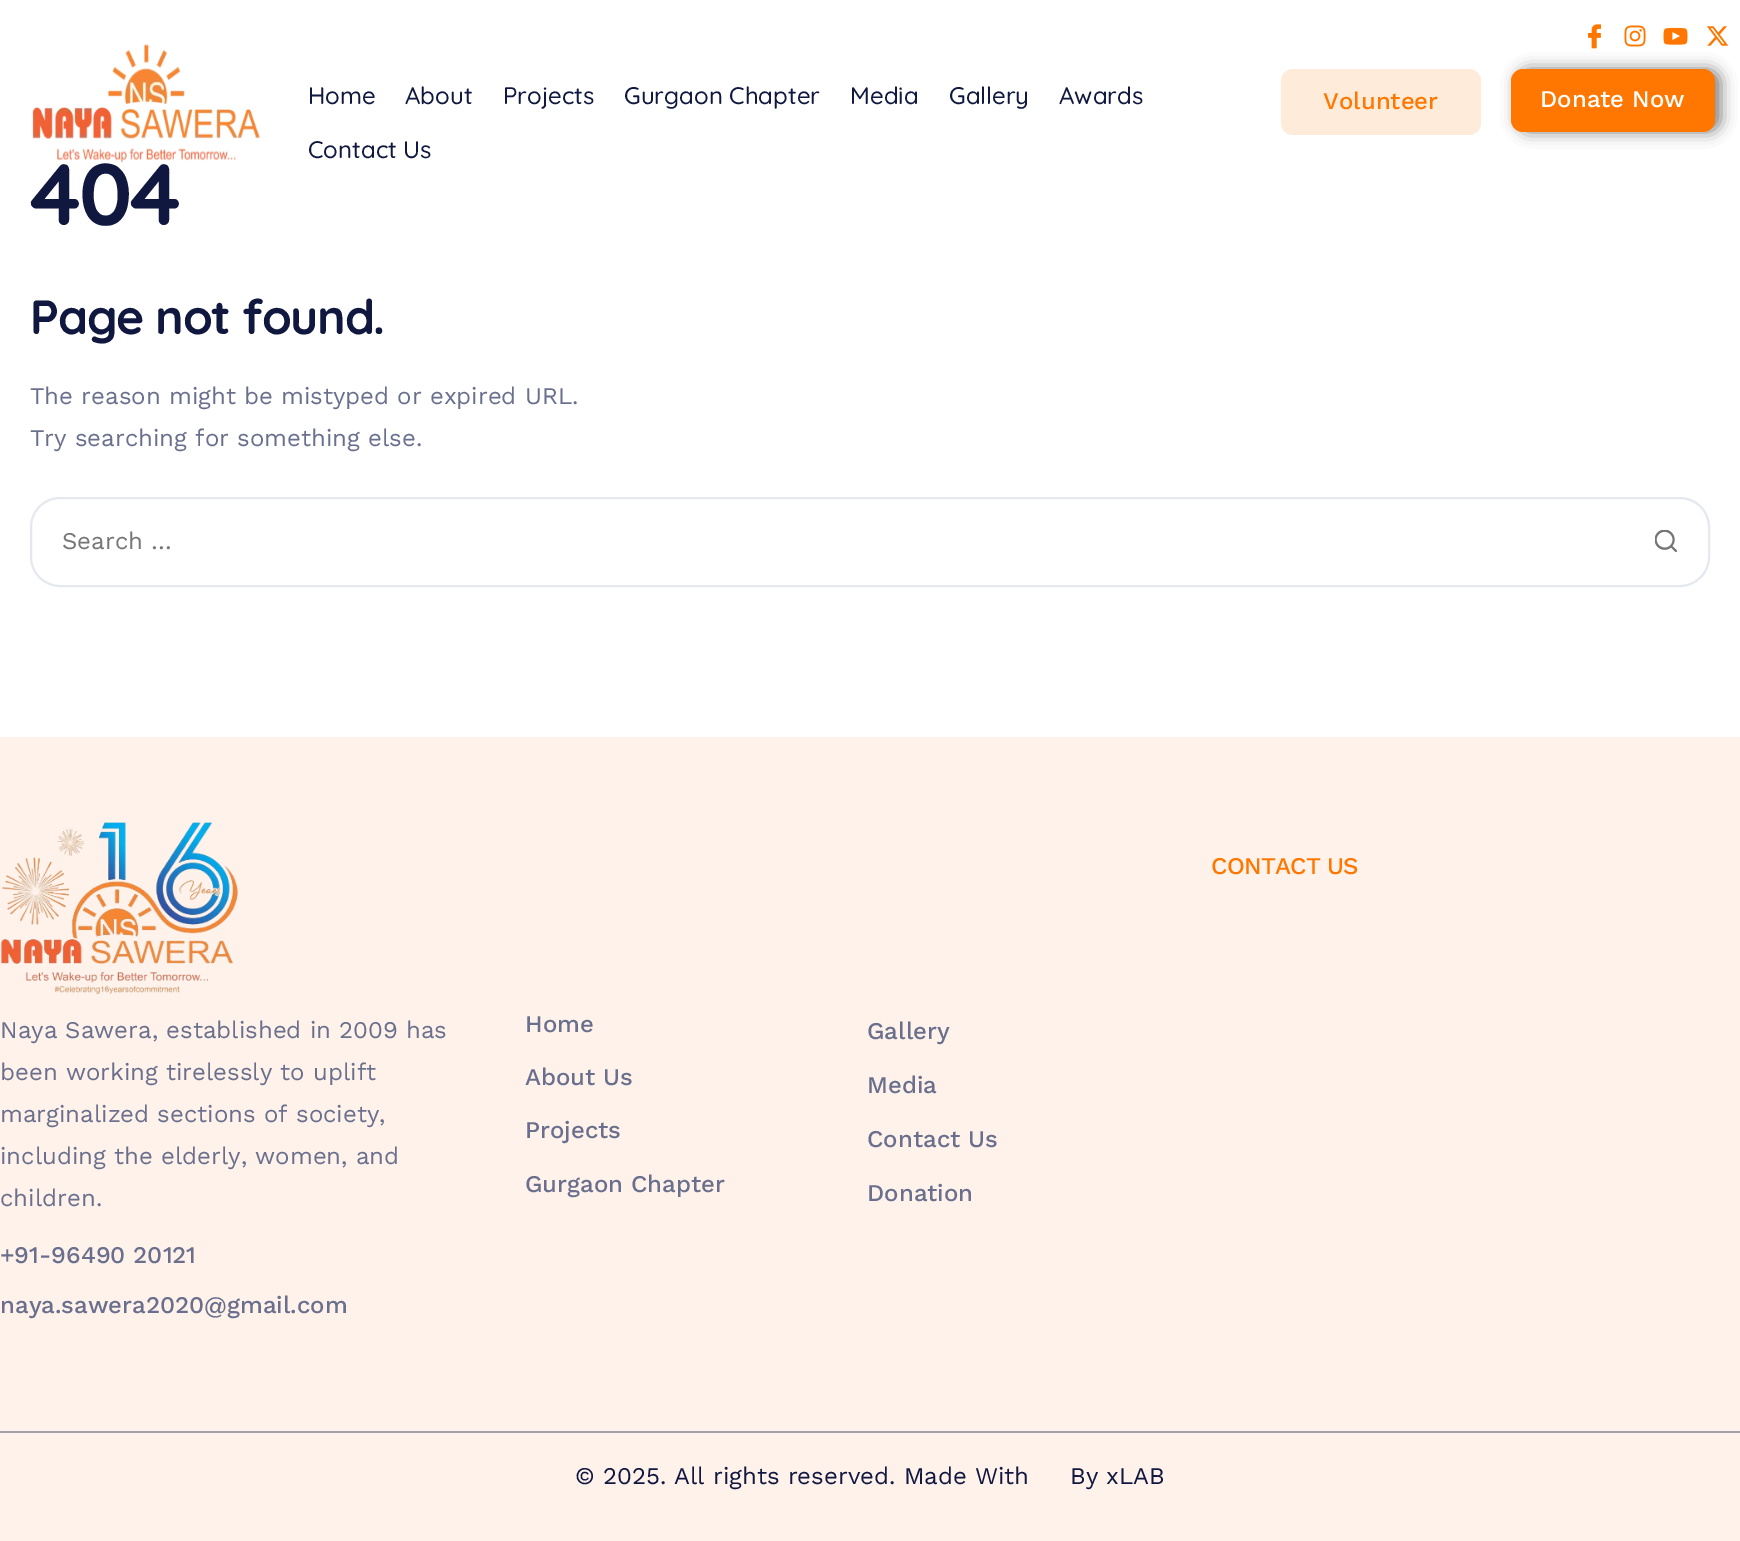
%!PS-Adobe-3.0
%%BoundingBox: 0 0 1740 1541
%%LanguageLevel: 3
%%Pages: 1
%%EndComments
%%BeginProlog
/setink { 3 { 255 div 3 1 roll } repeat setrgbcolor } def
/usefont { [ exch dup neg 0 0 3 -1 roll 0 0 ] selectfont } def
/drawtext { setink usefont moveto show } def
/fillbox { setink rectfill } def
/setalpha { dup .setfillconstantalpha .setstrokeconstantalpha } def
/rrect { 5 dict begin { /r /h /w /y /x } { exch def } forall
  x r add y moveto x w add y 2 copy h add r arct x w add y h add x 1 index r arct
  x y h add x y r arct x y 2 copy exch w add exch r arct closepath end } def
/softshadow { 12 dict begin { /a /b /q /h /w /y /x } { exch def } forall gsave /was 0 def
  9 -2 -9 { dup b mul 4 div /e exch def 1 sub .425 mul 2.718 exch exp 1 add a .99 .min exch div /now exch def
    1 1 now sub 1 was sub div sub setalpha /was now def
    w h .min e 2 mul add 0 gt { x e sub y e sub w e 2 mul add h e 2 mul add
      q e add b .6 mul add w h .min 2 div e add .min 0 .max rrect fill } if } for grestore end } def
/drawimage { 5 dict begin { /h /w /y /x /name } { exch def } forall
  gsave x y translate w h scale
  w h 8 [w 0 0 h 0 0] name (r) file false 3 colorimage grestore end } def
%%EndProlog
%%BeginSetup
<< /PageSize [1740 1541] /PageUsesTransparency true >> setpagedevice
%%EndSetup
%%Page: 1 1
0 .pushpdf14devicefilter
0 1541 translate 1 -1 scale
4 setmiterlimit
0 0 1740 1541 255 242 235 fillbox
0 0 1740 737 255 255 255 fillbox
(assets/img1.rgb) 32 44 228 119 drawimage
(assets/img2.rgb) 1588 24 13 25 drawimage
(assets/img3.rgb) 1624 25 22 22 drawimage
(assets/img4.rgb) 1663 27 25 18 drawimage
(assets/img5.rgb) 1706 26 23 20 drawimage
(Home) 308 104 /Quicksand-Medium 24 16 24 64 drawtext
(About) 405 104 /Quicksand-Medium 24 16 24 64 drawtext
(Projects) 503 104 /Quicksand-Medium 24 16 24 64 drawtext
(Gurgaon Chapter) 624 104 /Quicksand-Medium 24 16 24 64 drawtext
(Media) 850 104 /Quicksand-Medium 24 16 24 64 drawtext
(Gallery) 949 104 /Quicksand-Medium 24 16 24 64 drawtext
(Awards) 1059 104 /Quicksand-Medium 24 16 24 64 drawtext
(Contact Us) 308 158 /Quicksand-Medium 24 16 24 64 drawtext
255 235 217 setink
1281 69 200 66 12 rrect fill
(Volunteer) 1323 109 /WorkSans-Medium 24 255 119 0 drawtext
0 0 0 setink
1517 69 204 63 12 7.5 0.5 softshadow
255 119 0 setink
1511 69 204 63 12 rrect fill
(Donate Now) 1540 107 /WorkSans-Medium 24 255 255 255 drawtext
/Quicksand-Bold 87 usefont
16 24 64 setink
30 225 moveto -2.5 0 (404) ashow
/Quicksand-Bold 48 usefont
30 334 moveto -1.25 0 (Page not found.) ashow
(The reason might be mistyped or expired URL.) 30 404 /WorkSans-Regular 24 105 111 140 drawtext
(Try searching for something else.) 30 446 /WorkSans-Regular 24 105 111 140 drawtext
230 232 240 setink
2 setlinewidth
31 498 1678 88 29 rrect stroke
(Search …) 62 549 /WorkSans-Regular 24 117 117 117 drawtext
(assets/img6.rgb) 1655 530 22 22 drawimage
/WorkSans-Medium 24 usefont
255 119 0 setink
1211 874 moveto -0.75 0 (CONTACT US) ashow
(assets/img7.rgb) 0 822 238 172 drawimage
(Naya Sawera, established in 2009 has) 0 1038 /WorkSans-Regular 24 105 111 140 drawtext
(been working tirelessly to uplift) 0 1080 /WorkSans-Regular 24 105 111 140 drawtext
(marginalized sections of society,) 0 1122 /WorkSans-Regular 24 105 111 140 drawtext
(including the elderly, women, and) 0 1164 /WorkSans-Regular 24 105 111 140 drawtext
(children.) 0 1206 /WorkSans-Regular 24 105 111 140 drawtext
(+91-96490 20121) 0 1263 /WorkSans-Medium 24 105 111 140 drawtext
(naya.sawera2020@gmail.com) 0 1313 /WorkSans-Medium 24 105 111 140 drawtext
(Home) 525 1032 /WorkSans-Medium 24 105 111 140 drawtext
(About Us) 525 1085 /WorkSans-Medium 24 105 111 140 drawtext
(Projects) 525 1138 /WorkSans-Medium 24 105 111 140 drawtext
(Gurgaon Chapter) 525 1192 /WorkSans-Medium 24 105 111 140 drawtext
(Gallery) 867 1039 /WorkSans-Medium 24 105 111 140 drawtext
(Media) 867 1093 /WorkSans-Medium 24 105 111 140 drawtext
(Contact Us) 867 1147 /WorkSans-Medium 24 105 111 140 drawtext
(Donation) 867 1201 /WorkSans-Medium 24 105 111 140 drawtext
0 1431 1740 2 163 160 169 fillbox
(© 2025. All rights reserved. Made With) 575 1484 /WorkSans-Regular 24 16 24 64 drawtext
(By xLAB) 1070 1484 /WorkSans-Regular 24 16 24 64 drawtext
.poppdf14devicefilter showpage
%%EOF
